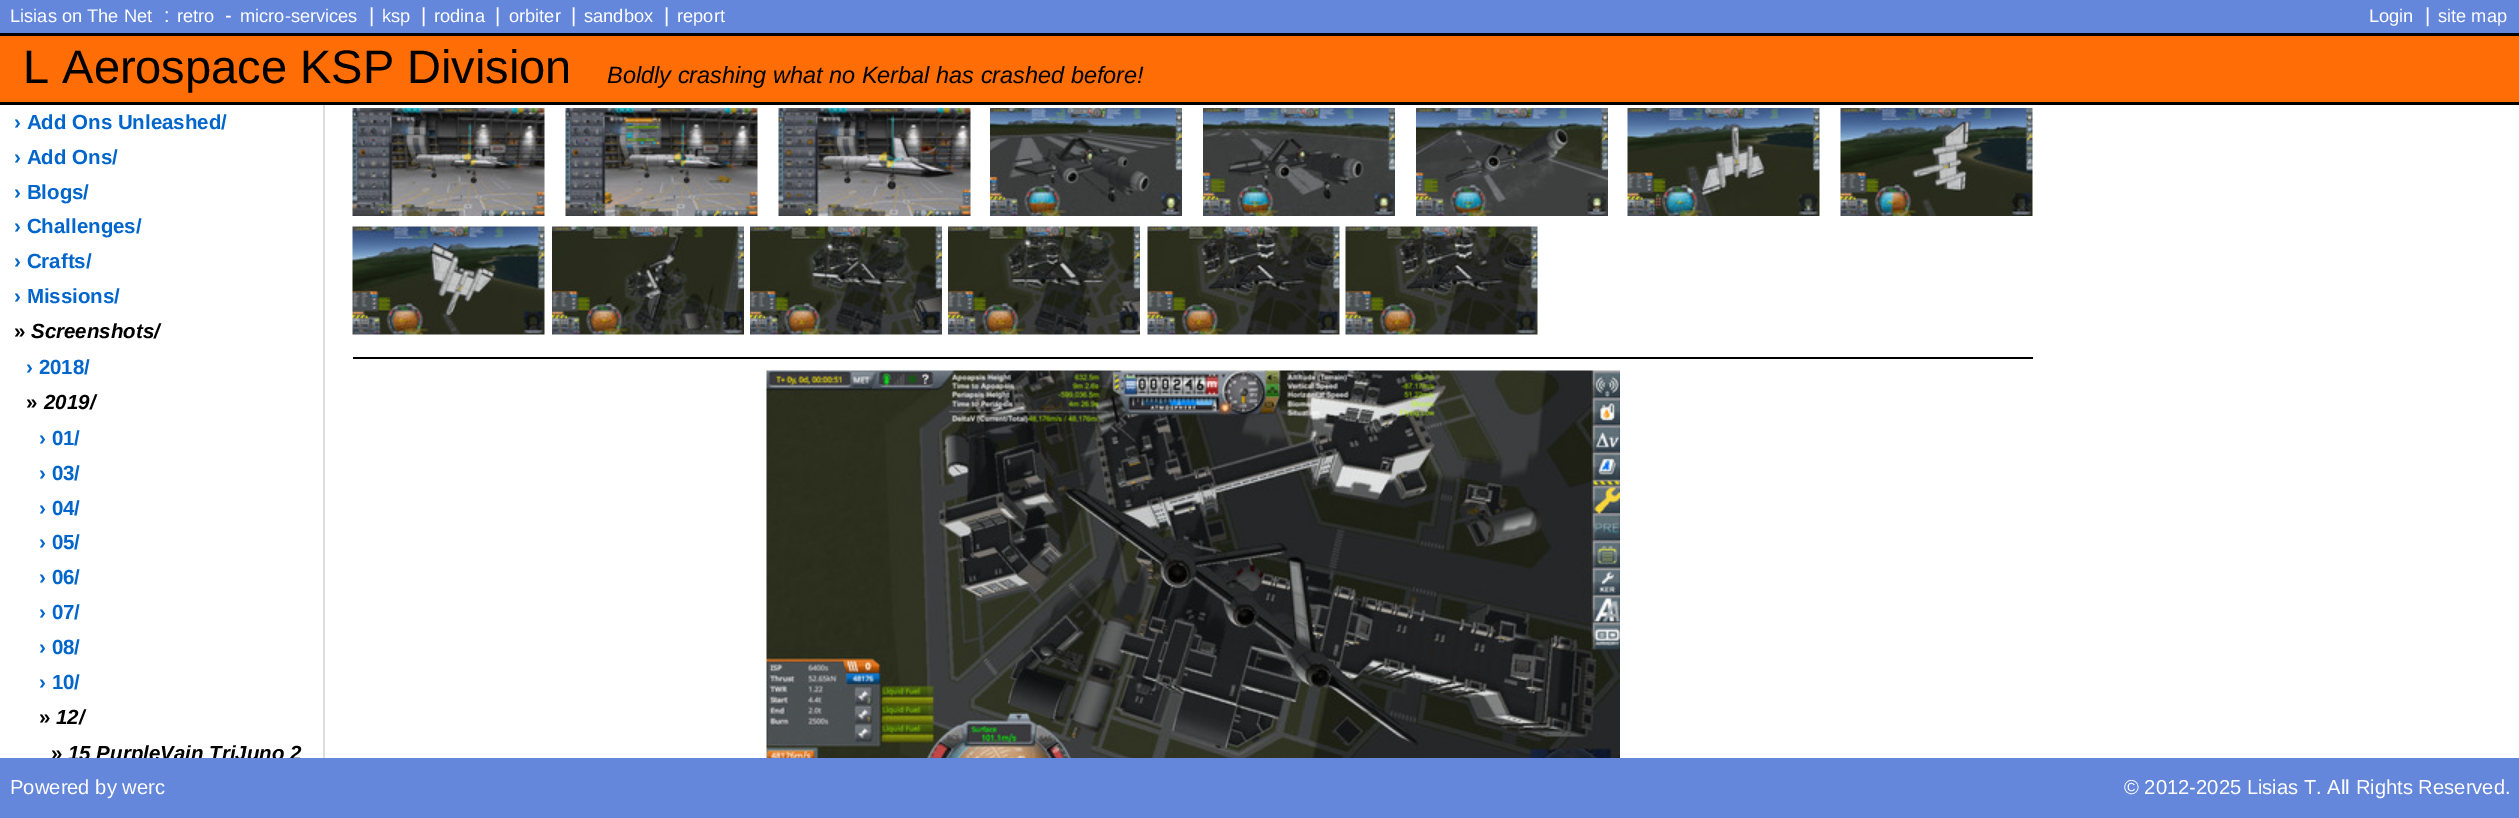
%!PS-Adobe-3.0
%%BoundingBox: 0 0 2519 818
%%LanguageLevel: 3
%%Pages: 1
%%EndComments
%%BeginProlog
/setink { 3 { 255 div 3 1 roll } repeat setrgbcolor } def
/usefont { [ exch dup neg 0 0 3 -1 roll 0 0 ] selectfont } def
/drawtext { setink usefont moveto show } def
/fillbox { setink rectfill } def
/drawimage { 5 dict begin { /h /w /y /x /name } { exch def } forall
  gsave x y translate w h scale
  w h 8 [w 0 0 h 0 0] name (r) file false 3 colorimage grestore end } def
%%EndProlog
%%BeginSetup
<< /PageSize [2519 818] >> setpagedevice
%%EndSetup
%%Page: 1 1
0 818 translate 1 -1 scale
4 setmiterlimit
0 0 2519 818 255 255 255 fillbox
0 0 2519 33 100 135 220 fillbox
(Lisias on The Net) 10 22 /LiberationSans-Regular 18.25 255 255 255 drawtext
(:) 164 22 /LiberationSans-Regular 20.2 255 255 255 drawtext
(retro) 177 22 /LiberationSans-Regular 18.25 255 255 255 drawtext
(-) 225 22 /LiberationSans-Regular 20.2 255 255 255 drawtext
(micro-services) 240 22 /LiberationSans-Regular 18.25 255 255 255 drawtext
(|) 369 22 /LiberationSans-Regular 20.2 255 255 255 drawtext
(ksp) 382 22 /LiberationSans-Regular 18.25 255 255 255 drawtext
(|) 421 22 /LiberationSans-Regular 20.2 255 255 255 drawtext
(rodina) 434 22 /LiberationSans-Regular 18.25 255 255 255 drawtext
(|) 495 22 /LiberationSans-Regular 20.2 255 255 255 drawtext
(orbiter) 509 22 /LiberationSans-Regular 18.25 255 255 255 drawtext
(|) 571 22 /LiberationSans-Regular 20.2 255 255 255 drawtext
(sandbox) 584 22 /LiberationSans-Regular 18.25 255 255 255 drawtext
(|) 664 22 /LiberationSans-Regular 20.2 255 255 255 drawtext
(report) 677 22 /LiberationSans-Regular 18.25 255 255 255 drawtext
(Login) 2369 22 /LiberationSans-Regular 18.25 255 255 255 drawtext
(|) 2425 22 /LiberationSans-Regular 20.2 255 255 255 drawtext
(site map) 2438 22 /LiberationSans-Regular 18.25 255 255 255 drawtext
0 36 2519 66 255 109 6 fillbox
0 33 2519 3 0 0 0 fillbox
0 102 2519 3 0 0 0 fillbox
(L Aerospace KSP Division) 23 83 /LiberationSans-Regular 47 0 0 0 drawtext
(Boldly crashing what no Kerbal has crashed before!) 607 83 /LiberationSans-Italic 23.5 0 0 0 drawtext
(› Add Ons Unleashed/) 14 129 /LiberationSans-Bold 20.5 0 102 204 drawtext
(› Add Ons/) 14 164 /LiberationSans-Bold 20.5 0 102 204 drawtext
(› Blogs/) 14 199 /LiberationSans-Bold 20.5 0 102 204 drawtext
(› Challenges/) 14 233 /LiberationSans-Bold 20.5 0 102 204 drawtext
(› Crafts/) 14 268 /LiberationSans-Bold 20.5 0 102 204 drawtext
(› Missions/) 14 303 /LiberationSans-Bold 20.5 0 102 204 drawtext
(») 14 338 /LiberationSans-Bold 20.5 0 0 0 drawtext
(Screenshots/) 31 338 /LiberationSans-BoldItalic 20.5 0 0 0 drawtext
(› 2018/) 26 374 /LiberationSans-Bold 20.5 0 102 204 drawtext
(») 26 409 /LiberationSans-Bold 20.5 0 0 0 drawtext
(2019/) 44 409 /LiberationSans-BoldItalic 20.5 0 0 0 drawtext
(› 01/) 39 445 /LiberationSans-Bold 20.5 0 102 204 drawtext
(› 03/) 39 480 /LiberationSans-Bold 20.5 0 102 204 drawtext
(› 04/) 39 515 /LiberationSans-Bold 20.5 0 102 204 drawtext
(› 05/) 39 549 /LiberationSans-Bold 20.5 0 102 204 drawtext
(› 06/) 39 584 /LiberationSans-Bold 20.5 0 102 204 drawtext
(› 07/) 39 619 /LiberationSans-Bold 20.5 0 102 204 drawtext
(› 08/) 39 654 /LiberationSans-Bold 20.5 0 102 204 drawtext
(› 10/) 39 689 /LiberationSans-Bold 20.5 0 102 204 drawtext
(») 39 724 /LiberationSans-Bold 20.5 0 0 0 drawtext
(12/) 56 724 /LiberationSans-BoldItalic 20.5 0 0 0 drawtext
(») 51 760 /LiberationSans-Bold 20.5 0 0 0 drawtext
(15 PurpleVain TriJuno 2) 68 760 /LiberationSans-BoldItalic 20.5 0 0 0 drawtext
323 105 2 653 221 221 221 fillbox
(assets/img1.rgb) 352 108 193 108 drawimage
(assets/img2.rgb) 565 108 193 108 drawimage
(assets/img3.rgb) 778 108 193 108 drawimage
(assets/img4.rgb) 990 108 192 108 drawimage
(assets/img5.rgb) 1203 108 192 108 drawimage
(assets/img6.rgb) 1416 108 192 108 drawimage
(assets/img7.rgb) 1627 108 193 108 drawimage
(assets/img8.rgb) 1840 108 193 108 drawimage
(assets/img9.rgb) 352 226 193 109 drawimage
(assets/img10.rgb) 552 226 192 109 drawimage
(assets/img11.rgb) 750 226 192 109 drawimage
(assets/img12.rgb) 948 226 192 109 drawimage
(assets/img13.rgb) 1147 226 193 109 drawimage
(assets/img14.rgb) 1345 226 193 109 drawimage
353 357 1680 2 0 0 0 fillbox
(assets/img15.rgb) 766 370 854 388 drawimage
0 758 2519 60 100 135 220 fillbox
(Powered by werc) 10 794 /LiberationSans-Regular 20.2 255 255 255 drawtext
(© 2012-2025 Lisias T. All Rights Reserved.) 2124 794 /LiberationSans-Regular 20.2 255 255 255 drawtext
showpage
%%EOF
